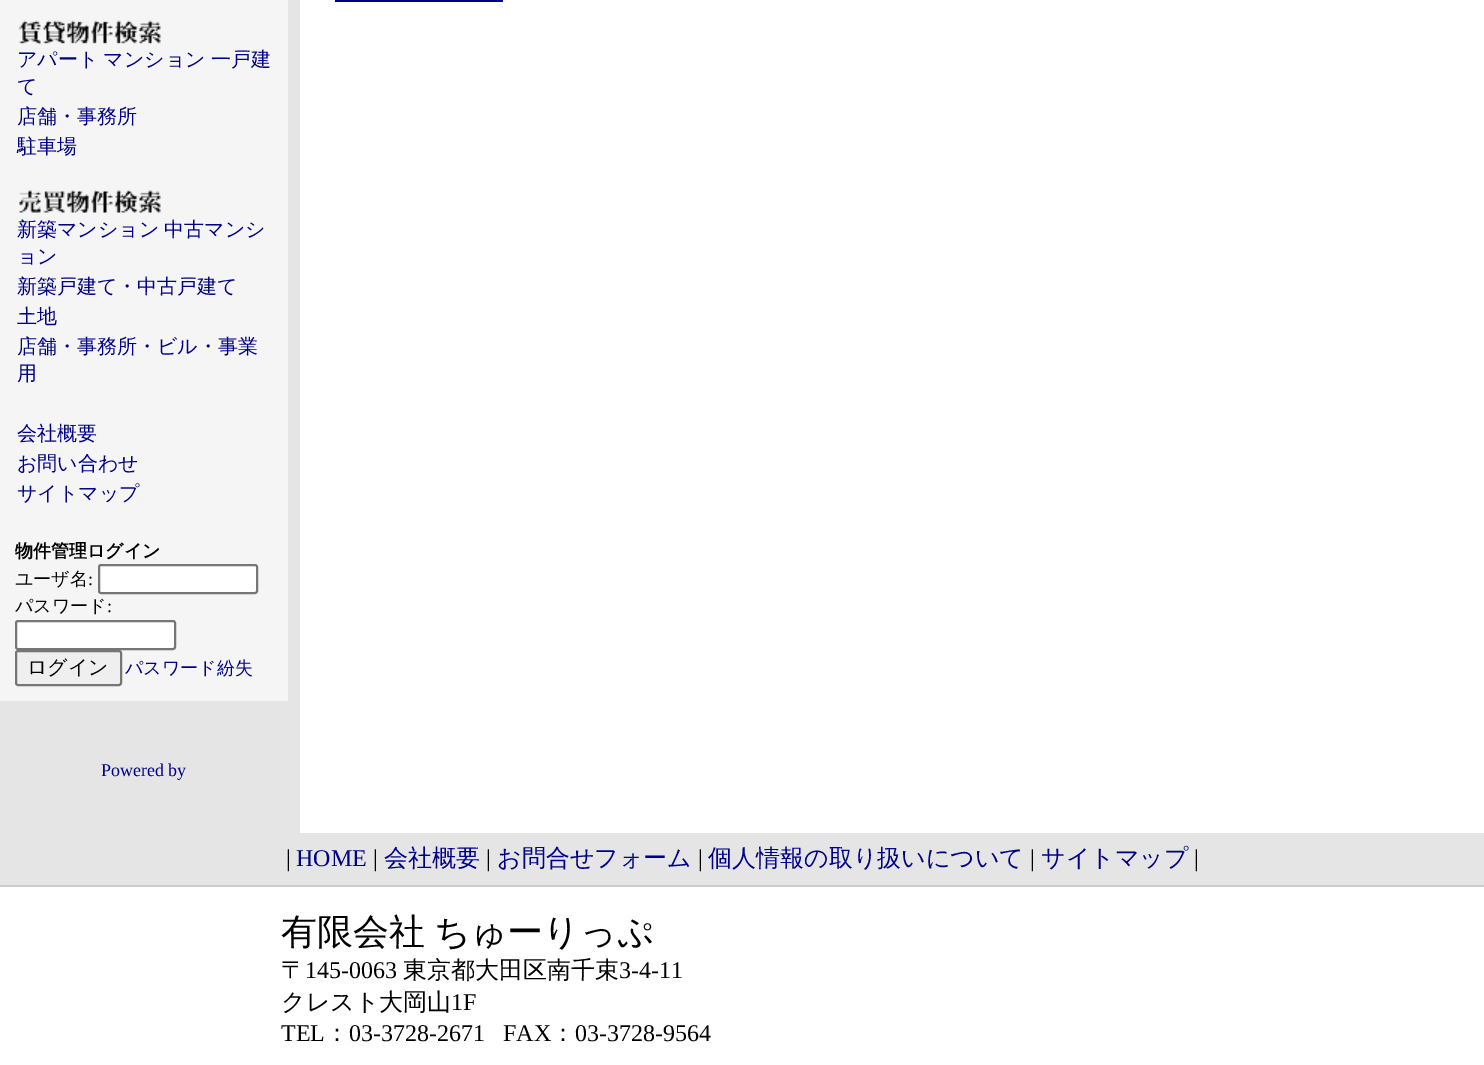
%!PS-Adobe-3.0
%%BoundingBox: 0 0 1484 1065
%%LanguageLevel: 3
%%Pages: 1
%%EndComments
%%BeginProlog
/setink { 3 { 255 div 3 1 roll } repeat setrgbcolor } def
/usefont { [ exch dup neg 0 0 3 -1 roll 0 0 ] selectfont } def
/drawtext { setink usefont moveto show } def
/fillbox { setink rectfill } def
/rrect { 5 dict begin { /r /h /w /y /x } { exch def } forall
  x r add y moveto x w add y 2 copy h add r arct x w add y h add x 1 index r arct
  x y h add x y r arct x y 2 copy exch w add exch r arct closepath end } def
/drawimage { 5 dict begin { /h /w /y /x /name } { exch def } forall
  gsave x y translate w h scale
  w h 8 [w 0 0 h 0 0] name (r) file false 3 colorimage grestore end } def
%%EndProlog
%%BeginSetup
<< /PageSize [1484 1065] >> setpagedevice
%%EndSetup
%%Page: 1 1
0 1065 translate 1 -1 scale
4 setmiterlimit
0 0 1484 1065 255 255 255 fillbox
288 0 12 833 229 229 229 fillbox
335 0 168 2 0 0 136 fillbox
0 701 288 132 229 229 229 fillbox
0 0 288 701 245 245 245 fillbox
(assets/img1.rgb) 18 20 143 25 drawimage
/WenQuanYiZenHei-Medium 20 usefont
0 0 136 setink
17 66 moveto -1 0 32 (アパート マンション 一戸建) widthshow
(て) 17 93 /WenQuanYiZenHei-Medium 20 0 0 136 drawtext
(店舗・事務所) 17 123 /WenQuanYiZenHei-Medium 20 0 0 136 drawtext
(駐車場) 17 153 /WenQuanYiZenHei-Medium 20 0 0 136 drawtext
(assets/img2.rgb) 19 189 143 24 drawimage
17 236 moveto -1 0 32 (新築マンション 中古マンシ) widthshow
(ョン) 17 263 /WenQuanYiZenHei-Medium 20 0 0 136 drawtext
(新築戸建て・中古戸建て) 17 293 /WenQuanYiZenHei-Medium 20 0 0 136 drawtext
(土地) 17 323 /WenQuanYiZenHei-Medium 20 0 0 136 drawtext
(店舗・事務所・ビル・事業) 17 353 /WenQuanYiZenHei-Medium 20 0 0 136 drawtext
(用) 17 380 /WenQuanYiZenHei-Medium 20 0 0 136 drawtext
(会社概要) 17 440 /WenQuanYiZenHei-Medium 20 0 0 136 drawtext
(お問い合わせ) 17 470 /WenQuanYiZenHei-Medium 20 0 0 136 drawtext
(サイトマップ) 17 500 /WenQuanYiZenHei-Medium 20 0 0 136 drawtext
(物件管理ログイン) 15 557 /WenQuanYiZenHei-Bold 18 0 0 0 drawtext
(ユーザ名) 15 585 /WenQuanYiZenHei-Medium 18 0 0 0 drawtext
(:) 88 585 /LiberationSerif-Regular 18 0 0 0 drawtext
255 255 255 setink
99 565 158 28 2 rrect gsave fill grestore
118 118 118 setink
2 setlinewidth
stroke
(パスワード) 15 612 /WenQuanYiZenHei-Medium 18 0 0 0 drawtext
(:) 107 612 /LiberationSerif-Regular 18 0 0 0 drawtext
255 255 255 setink
16 621 159 28 2 rrect gsave fill grestore
118 118 118 setink
stroke
239 239 239 setink
16 651 105 34 2 rrect gsave fill grestore
118 118 118 setink
stroke
(ログイン) 27 674 /WenQuanYiZenHei-Medium 20 0 0 0 drawtext
(パスワード紛失) 125 674 /WenQuanYiZenHei-Medium 18 0 0 136 drawtext
(Powered by) 101 776 /LiberationSerif-Regular 18 0 0 136 drawtext
0 833 1484 52 229 229 229 fillbox
(|) 286 866 /LiberationSerif-Regular 24 0 0 0 drawtext
(HOME) 296 866 /LiberationSerif-Regular 24 0 0 136 drawtext
(|) 373 866 /LiberationSerif-Regular 24 0 0 0 drawtext
(会社概要) 384 866 /WenQuanYiZenHei-Medium 24 0 0 136 drawtext
(|) 486 866 /LiberationSerif-Regular 24 0 0 0 drawtext
(お問合せフォーム) 497 866 /WenQuanYiZenHei-Medium 24 0 0 136 drawtext
(|) 698 866 /LiberationSerif-Regular 24 0 0 0 drawtext
(個人情報の取り扱いについて) 708 866 /WenQuanYiZenHei-Medium 24 0 0 136 drawtext
(|) 1030 866 /LiberationSerif-Regular 24 0 0 0 drawtext
(サイトマップ) 1041 866 /WenQuanYiZenHei-Medium 24 0 0 136 drawtext
(|) 1194 866 /LiberationSerif-Regular 24 0 0 0 drawtext
0 885 1484 2 204 204 204 fillbox
/WenQuanYiZenHei-Medium 36 usefont
0 0 0 setink
281 944 moveto -2 0 32 (有限会社 ちゅーりっぷ) widthshow
(〒) 281 978 /WenQuanYiZenHei-Medium 24 0 0 0 drawtext
(145-0063) 305 978 /LiberationSerif-Regular 24 0 0 0 drawtext
(東京都大田区南千束) 403 978 /WenQuanYiZenHei-Medium 24 0 0 0 drawtext
(3-4-11) 619 978 /LiberationSerif-Regular 24 0 0 0 drawtext
(クレスト大岡山) 281 1010 /WenQuanYiZenHei-Medium 24 0 0 0 drawtext
(1F) 451 1010 /LiberationSerif-Regular 24 0 0 0 drawtext
(TEL) 281 1041 /LiberationSerif-Regular 24 0 0 0 drawtext
(：) 325 1041 /WenQuanYiZenHei-Medium 24 0 0 0 drawtext
(03-3728-2671   FAX) 349 1041 /LiberationSerif-Regular 24 0 0 0 drawtext
(：) 551 1041 /WenQuanYiZenHei-Medium 24 0 0 0 drawtext
(03-3728-9564) 575 1041 /LiberationSerif-Regular 24 0 0 0 drawtext
showpage
%%EOF
